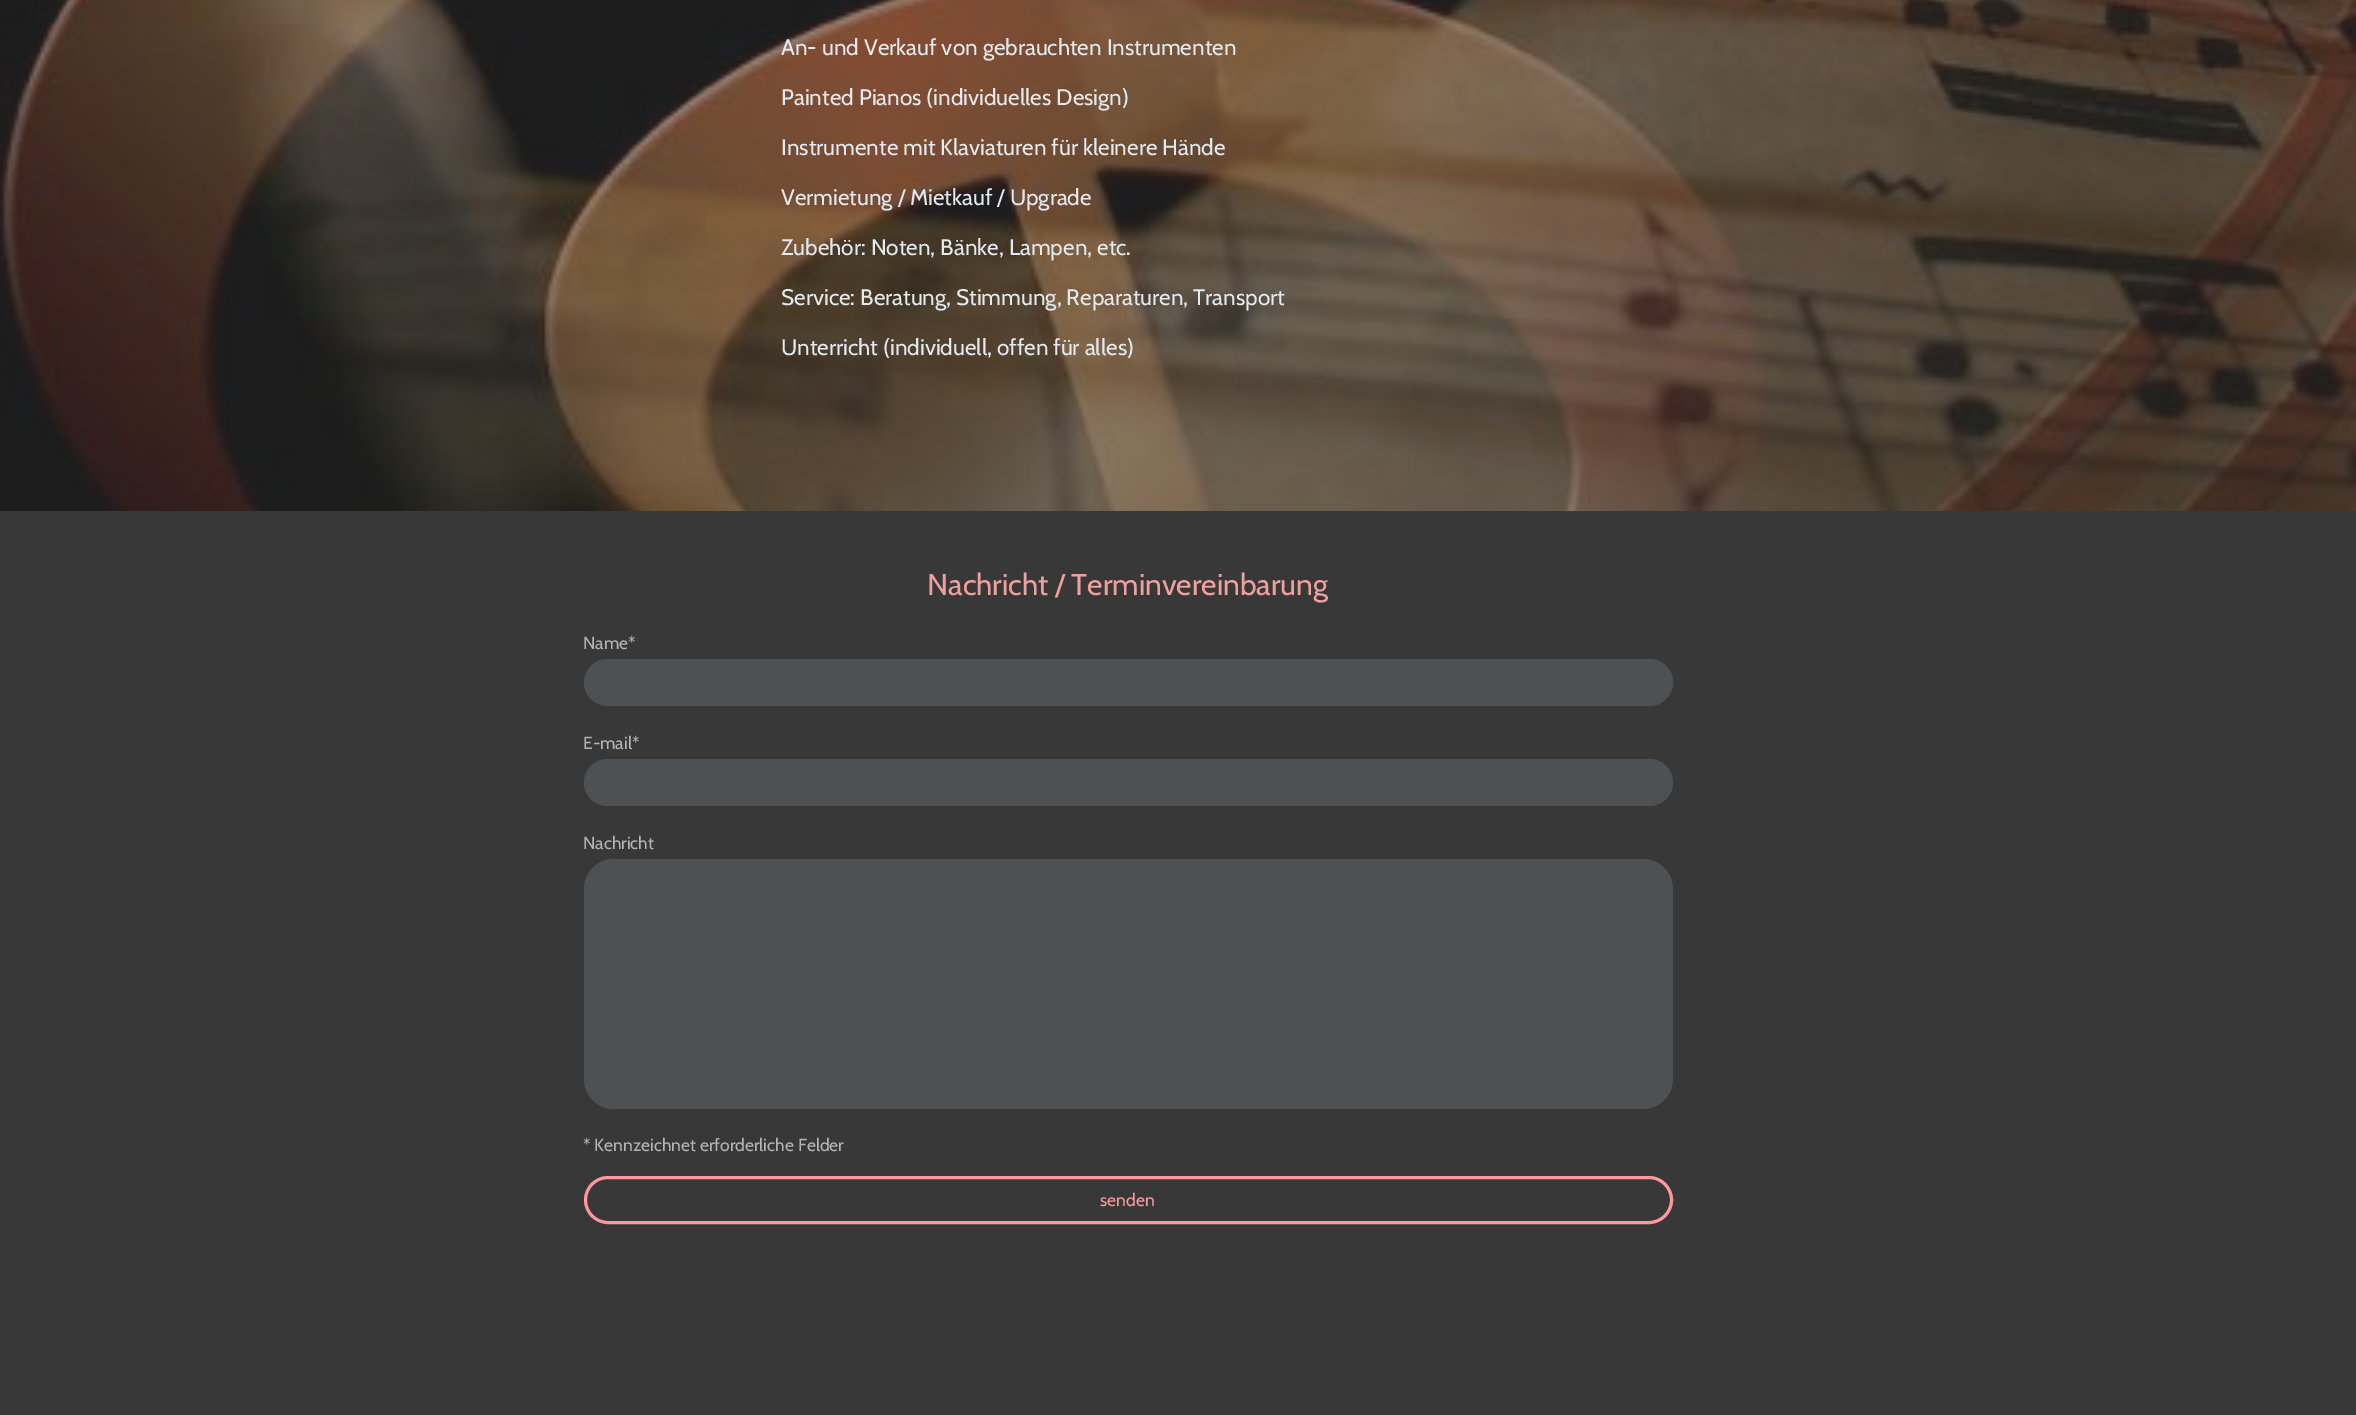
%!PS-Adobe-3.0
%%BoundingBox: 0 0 2356 1415
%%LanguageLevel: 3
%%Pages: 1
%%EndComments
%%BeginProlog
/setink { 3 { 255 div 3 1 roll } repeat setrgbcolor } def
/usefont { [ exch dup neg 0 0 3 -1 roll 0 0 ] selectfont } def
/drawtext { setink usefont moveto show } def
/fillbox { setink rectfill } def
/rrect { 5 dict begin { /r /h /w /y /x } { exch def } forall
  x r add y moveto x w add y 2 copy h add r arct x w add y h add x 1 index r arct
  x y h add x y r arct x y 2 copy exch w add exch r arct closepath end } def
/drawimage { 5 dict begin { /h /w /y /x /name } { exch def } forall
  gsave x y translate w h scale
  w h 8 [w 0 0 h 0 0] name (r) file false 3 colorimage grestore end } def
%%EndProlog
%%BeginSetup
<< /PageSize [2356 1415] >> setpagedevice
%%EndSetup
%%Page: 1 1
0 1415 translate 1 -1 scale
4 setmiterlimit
0 0 2356 1415 56 56 56 fillbox
(assets/img1.rgb) 0 0 2356 511 drawimage
(An- und Verkauf von gebrauchten Instrumenten) 781 55 /Cabin-Regular 22.5 228 234 239 drawtext
(Painted Pianos \(individuelles Design\)) 781 105 /Cabin-Regular 22.5 228 234 239 drawtext
(Instrumente mit Klaviaturen für kleinere Hände) 781 155 /Cabin-Regular 22.5 228 234 239 drawtext
(Vermietung / Mietkauf / Upgrade) 781 205 /Cabin-Regular 22.5 228 234 239 drawtext
(Zubehör: Noten, Bänke, Lampen, etc.) 781 255 /Cabin-Regular 22.5 228 234 239 drawtext
(Service: Beratung, Stimmung, Reparaturen, Transport) 781 305 /Cabin-Regular 22.5 228 234 239 drawtext
(Unterricht \(individuell, offen für alles\)) 781 355 /Cabin-Regular 22.5 228 234 239 drawtext
(Nachricht / Terminvereinbarung) 927 595 /Cabin-Regular 30 240 159 159 drawtext
(Name*) 583 649 /Cabin-Regular 17.5 181 181 181 drawtext
78 81 83 setink
584 659 1089 47 23.5 rrect fill
(E-mail*) 583 749 /Cabin-Regular 17.5 181 181 181 drawtext
78 81 83 setink
584 759 1089 47 23.5 rrect fill
(Nachricht) 583 849 /Cabin-Regular 17.5 181 181 181 drawtext
78 81 83 setink
584 859 1089 250 30 rrect fill
(* Kennzeichnet erforderliche Felder) 583 1151 /Cabin-Regular 17.5 181 181 181 drawtext
255 151 159 setink
3 setlinewidth
585.5 1177.5 1086 45 22.5 rrect stroke
(senden) 1100 1206 /Cabin-Regular 17.5 255 151 159 drawtext
showpage
%%EOF
